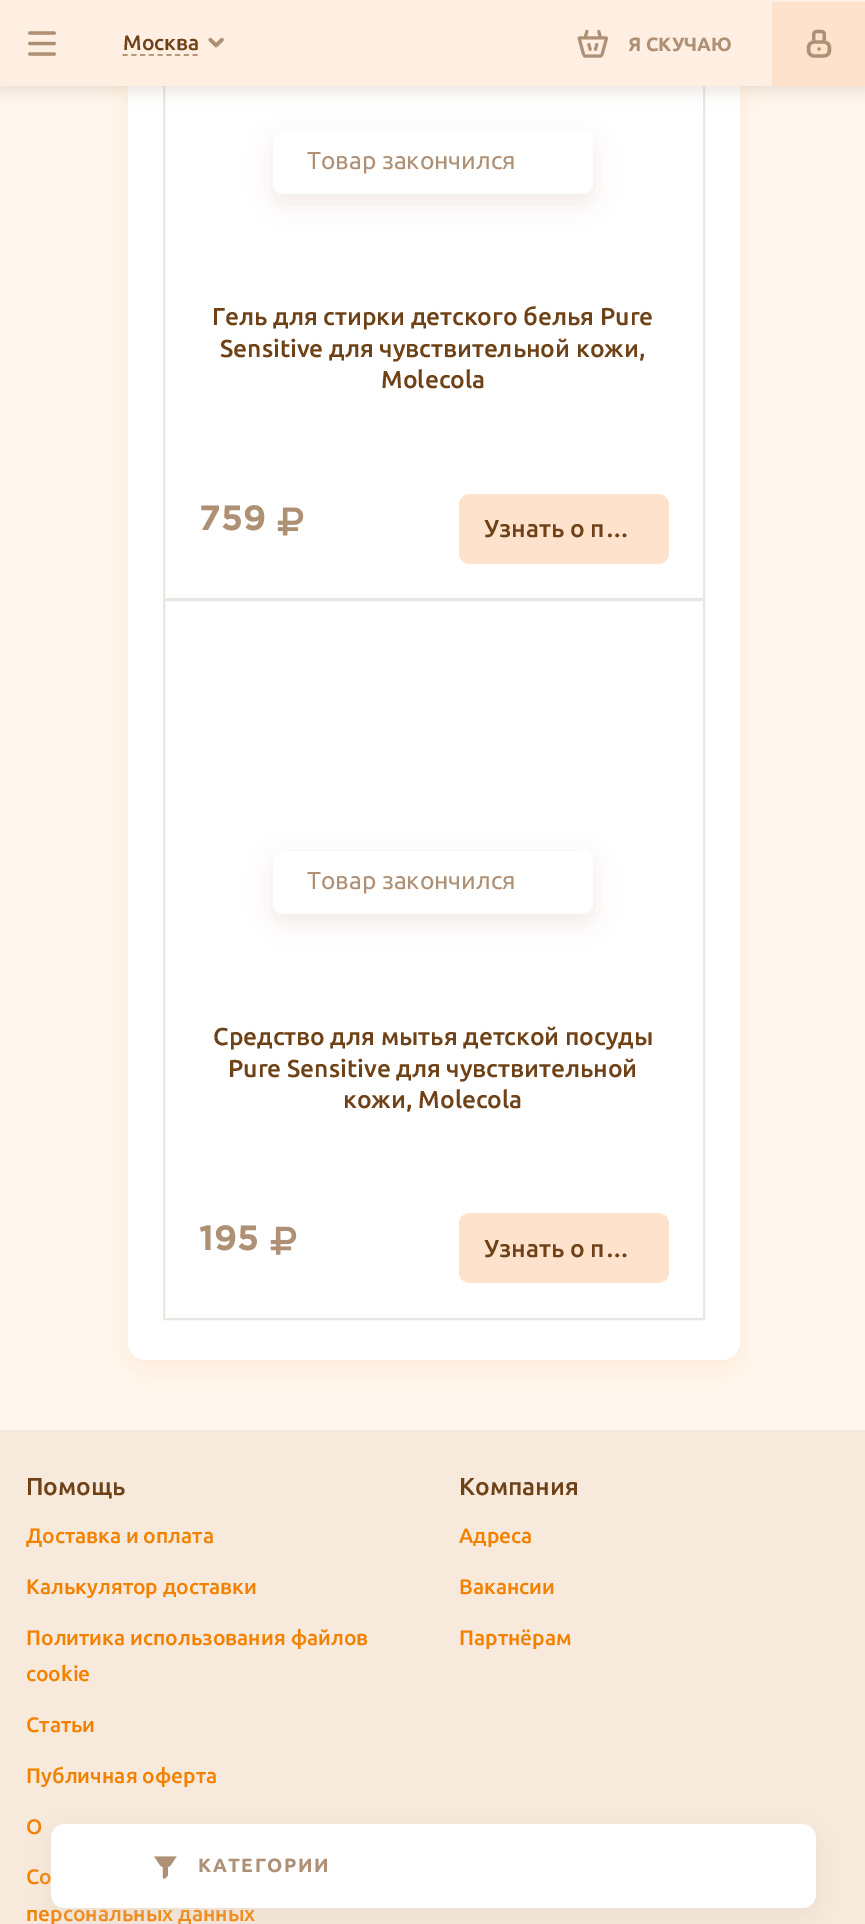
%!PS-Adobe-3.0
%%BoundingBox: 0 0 865 1924
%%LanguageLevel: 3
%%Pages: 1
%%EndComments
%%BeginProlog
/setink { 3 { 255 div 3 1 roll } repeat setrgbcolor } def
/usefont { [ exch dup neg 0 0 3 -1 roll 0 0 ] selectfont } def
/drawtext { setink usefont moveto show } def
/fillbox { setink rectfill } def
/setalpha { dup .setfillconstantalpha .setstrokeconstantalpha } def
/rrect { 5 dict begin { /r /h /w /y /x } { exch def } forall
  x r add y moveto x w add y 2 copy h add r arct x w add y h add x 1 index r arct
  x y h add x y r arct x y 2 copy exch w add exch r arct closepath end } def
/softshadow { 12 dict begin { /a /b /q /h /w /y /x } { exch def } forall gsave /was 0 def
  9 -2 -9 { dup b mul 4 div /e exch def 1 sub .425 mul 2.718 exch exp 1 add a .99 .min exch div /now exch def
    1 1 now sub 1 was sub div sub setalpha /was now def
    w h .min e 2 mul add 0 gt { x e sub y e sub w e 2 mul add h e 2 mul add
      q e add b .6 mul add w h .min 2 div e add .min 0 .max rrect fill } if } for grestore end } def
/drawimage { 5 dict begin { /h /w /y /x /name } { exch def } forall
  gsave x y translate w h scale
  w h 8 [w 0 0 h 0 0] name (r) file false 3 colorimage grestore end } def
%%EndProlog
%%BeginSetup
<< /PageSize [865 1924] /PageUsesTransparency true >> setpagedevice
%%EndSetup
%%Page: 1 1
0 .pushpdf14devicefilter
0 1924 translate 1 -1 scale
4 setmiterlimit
0 0 865 1924 255 246 238 fillbox
253 222 193 setink
128 -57 612 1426 18 13 0.5 softshadow
255 255 255 setink
128 -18 612 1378 18 rrect fill
234 230 226 setink
2 setlinewidth
164 -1 540 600 rectstroke
174 144 117 setink
0 4 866 85 0 9 0.3 softshadow
0 0 865 86 255 238 226 fillbox
(assets/img1.rgb) 28 31 28 25 drawimage
(Москва) 123 50 /Ubuntu-Medium 21 110 65 23 drawtext
183 152 125 setink
1.8 setlinewidth
[5.25 3.5] 0 setdash
122.5 55 moveto 198 55 lineto stroke
(assets/img2.rgb) 208 37 16 11 drawimage
(assets/img3.rgb) 577 29 32 29 drawimage
(Я СКУЧАЮ) 628 51 /Ubuntu-Bold 19.25 174 144 117 drawtext
772 2 93 84 255 226 204 fillbox
(assets/img4.rgb) 806 29 26 29 drawimage
214 199 185 setink
273 140 320 63 11 13 0.35 softshadow
255 255 255 setink
273 131 320 63 11 rrect fill
(Товар закончился) 307 169 /Ubuntu-Regular 24.5 174 144 117 drawtext
(Гель для стирки детского белья Pure) 212 325 /Ubuntu-Medium 24.5 110 65 23 drawtext
(Sensitive для чувствительной кожи,) 220 357 /Ubuntu-Medium 24.5 110 65 23 drawtext
(Molecola) 381 388 /Ubuntu-Medium 24.5 110 65 23 drawtext
(759) 199 530 /Gotham-Bold 35 174 144 117 drawtext
(assets/img5.rgb) 277 507 27 29 drawimage
255 226 204 setink
459 494 210 70 11 rrect fill
(Узнать о п…) 484 537 /Ubuntu-Medium 24.5 110 65 23 drawtext
234 230 226 setink
2 setlinewidth
[] 0 setdash
164 600 540 719 rectstroke
214 199 185 setink
273 859 320 63 11 13 0.35 softshadow
255 255 255 setink
273 851 320 63 11 rrect fill
(Товар закончился) 307 889 /Ubuntu-Regular 24.5 174 144 117 drawtext
(Средство для мытья детской посуды) 213 1045 /Ubuntu-Medium 24.5 110 65 23 drawtext
(Pure Sensitive для чувствительной) 228 1077 /Ubuntu-Medium 24.5 110 65 23 drawtext
(кожи, Molecola) 343 1108 /Ubuntu-Medium 24.5 110 65 23 drawtext
(195) 199 1250 /Gotham-Bold 35 174 144 117 drawtext
(assets/img6.rgb) 270 1226 27 29 drawimage
255 226 204 setink
459 1213 210 70 11 rrect fill
(Узнать о п…) 484 1257 /Ubuntu-Medium 24.5 110 65 23 drawtext
0 1430 865 494 247 233 220 fillbox
(Помощь) 26 1495 /Ubuntu-Medium 24.5 110 65 23 drawtext
(Доставка и оплата) 26 1543 /Ubuntu-Medium 21 242 129 0 drawtext
(Калькулятор доставки) 26 1594 /Ubuntu-Medium 21 242 129 0 drawtext
(Политика использования файлов) 26 1645 /Ubuntu-Medium 21 242 129 0 drawtext
(cookie) 26 1681 /Ubuntu-Medium 21 242 129 0 drawtext
(Статьи) 26 1732 /Ubuntu-Medium 21 242 129 0 drawtext
(Публичная оферта) 26 1783 /Ubuntu-Medium 21 242 129 0 drawtext
(О) 26 1834 /Ubuntu-Medium 21 242 129 0 drawtext
(Со) 26 1884 /Ubuntu-Medium 21 242 129 0 drawtext
(персональных данных) 26 1921 /Ubuntu-Medium 21 242 129 0 drawtext
(Компания) 459 1495 /Ubuntu-Medium 24.5 110 65 23 drawtext
(Адреса) 459 1543 /Ubuntu-Medium 21 242 129 0 drawtext
(Вакансии) 459 1594 /Ubuntu-Medium 21 242 129 0 drawtext
(Партнёрам) 459 1645 /Ubuntu-Medium 21 242 129 0 drawtext
214 199 185 setink
51 1832 765 84 14 13 0.35 softshadow
255 255 255 setink
51 1824 765 84 14 rrect fill
(assets/img7.rgb) 154 1856 23 23 drawimage
/Ubuntu-Bold 19.25 usefont
174 144 117 setink
198 1872 moveto 1.5 0 (КАТЕГОРИИ) ashow
.poppdf14devicefilter showpage
%%EOF
